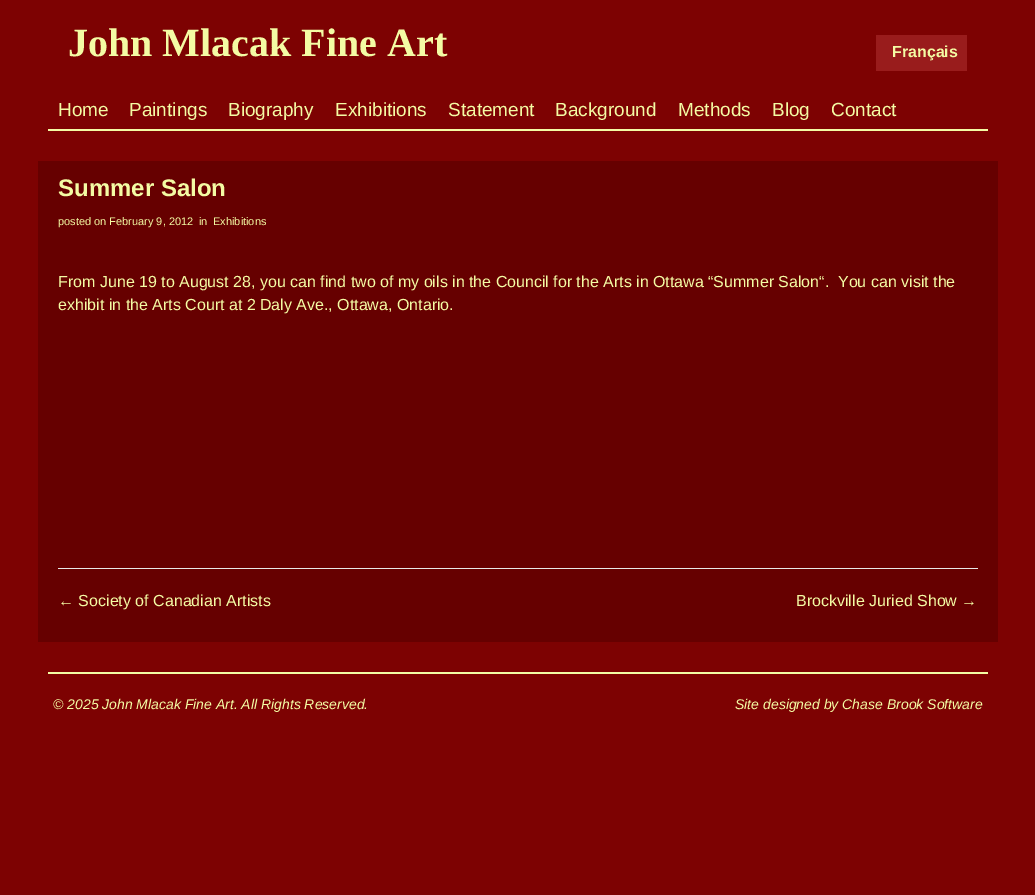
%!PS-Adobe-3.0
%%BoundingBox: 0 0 1035 895
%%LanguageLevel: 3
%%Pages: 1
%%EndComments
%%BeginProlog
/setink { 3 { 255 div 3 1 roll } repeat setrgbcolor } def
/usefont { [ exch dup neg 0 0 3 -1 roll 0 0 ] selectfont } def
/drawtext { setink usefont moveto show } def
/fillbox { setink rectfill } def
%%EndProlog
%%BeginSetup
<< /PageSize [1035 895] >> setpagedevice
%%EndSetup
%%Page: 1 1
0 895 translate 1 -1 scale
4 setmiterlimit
0 0 1035 895 125 2 2 fillbox
(John Mlacak Fine Art) 68 56 /LiberationSerif-Bold 40 244 251 164 drawtext
876 35 91 36 153 28 28 fillbox
(Français) 892 57 /LiberationSans-Bold 16 244 251 164 drawtext
(Home) 58 116 /LiberationSans-Regular 19 244 251 164 drawtext
(Paintings) 129 116 /LiberationSans-Regular 19 244 251 164 drawtext
(Biography) 228 116 /LiberationSans-Regular 19 244 251 164 drawtext
(Exhibitions) 335 116 /LiberationSans-Regular 19 244 251 164 drawtext
(Statement) 448 116 /LiberationSans-Regular 19 244 251 164 drawtext
(Background) 555 116 /LiberationSans-Regular 19 244 251 164 drawtext
(Methods) 678 116 /LiberationSans-Regular 19 244 251 164 drawtext
(Blog) 772 116 /LiberationSans-Regular 19 244 251 164 drawtext
(Contact) 831 116 /LiberationSans-Regular 19 244 251 164 drawtext
48 129 940 2 244 251 164 fillbox
38 161 960 481 102 0 0 fillbox
(Summer Salon) 58 196 /LiberationSans-Bold 24 244 251 164 drawtext
(posted on February 9, 2012) 58 225 /LiberationSans-Regular 11 244 251 164 drawtext
(in) 199 225 /LiberationSans-Regular 11 244 251 164 drawtext
(Exhibitions) 213 225 /LiberationSans-Regular 11 244 251 164 drawtext
(From June 19 to August 28, you can find two of my oils in the Council for the Arts in Ottawa “Summer Salon“.  You can visit the) 58 287 /LiberationSans-Regular 16 244 251 164 drawtext
(exhibit in the Arts Court at 2 Daly Ave., Ottawa, Ontario.) 58 310 /LiberationSans-Regular 16 244 251 164 drawtext
58 568 920 1 232 232 232 fillbox
(← Society of Canadian Artists) 58 606 /LiberationSans-Regular 16 244 251 164 drawtext
(Brockville Juried Show →) 796 606 /LiberationSans-Regular 16 244 251 164 drawtext
48 672 940 2 244 251 164 fillbox
(© 2025 John Mlacak Fine Art. All Rights Reserved.) 53 709 /LiberationSans-Italic 14 244 251 164 drawtext
(Site designed by Chase Brook Software) 735 709 /LiberationSans-Italic 14 244 251 164 drawtext
showpage
%%EOF
